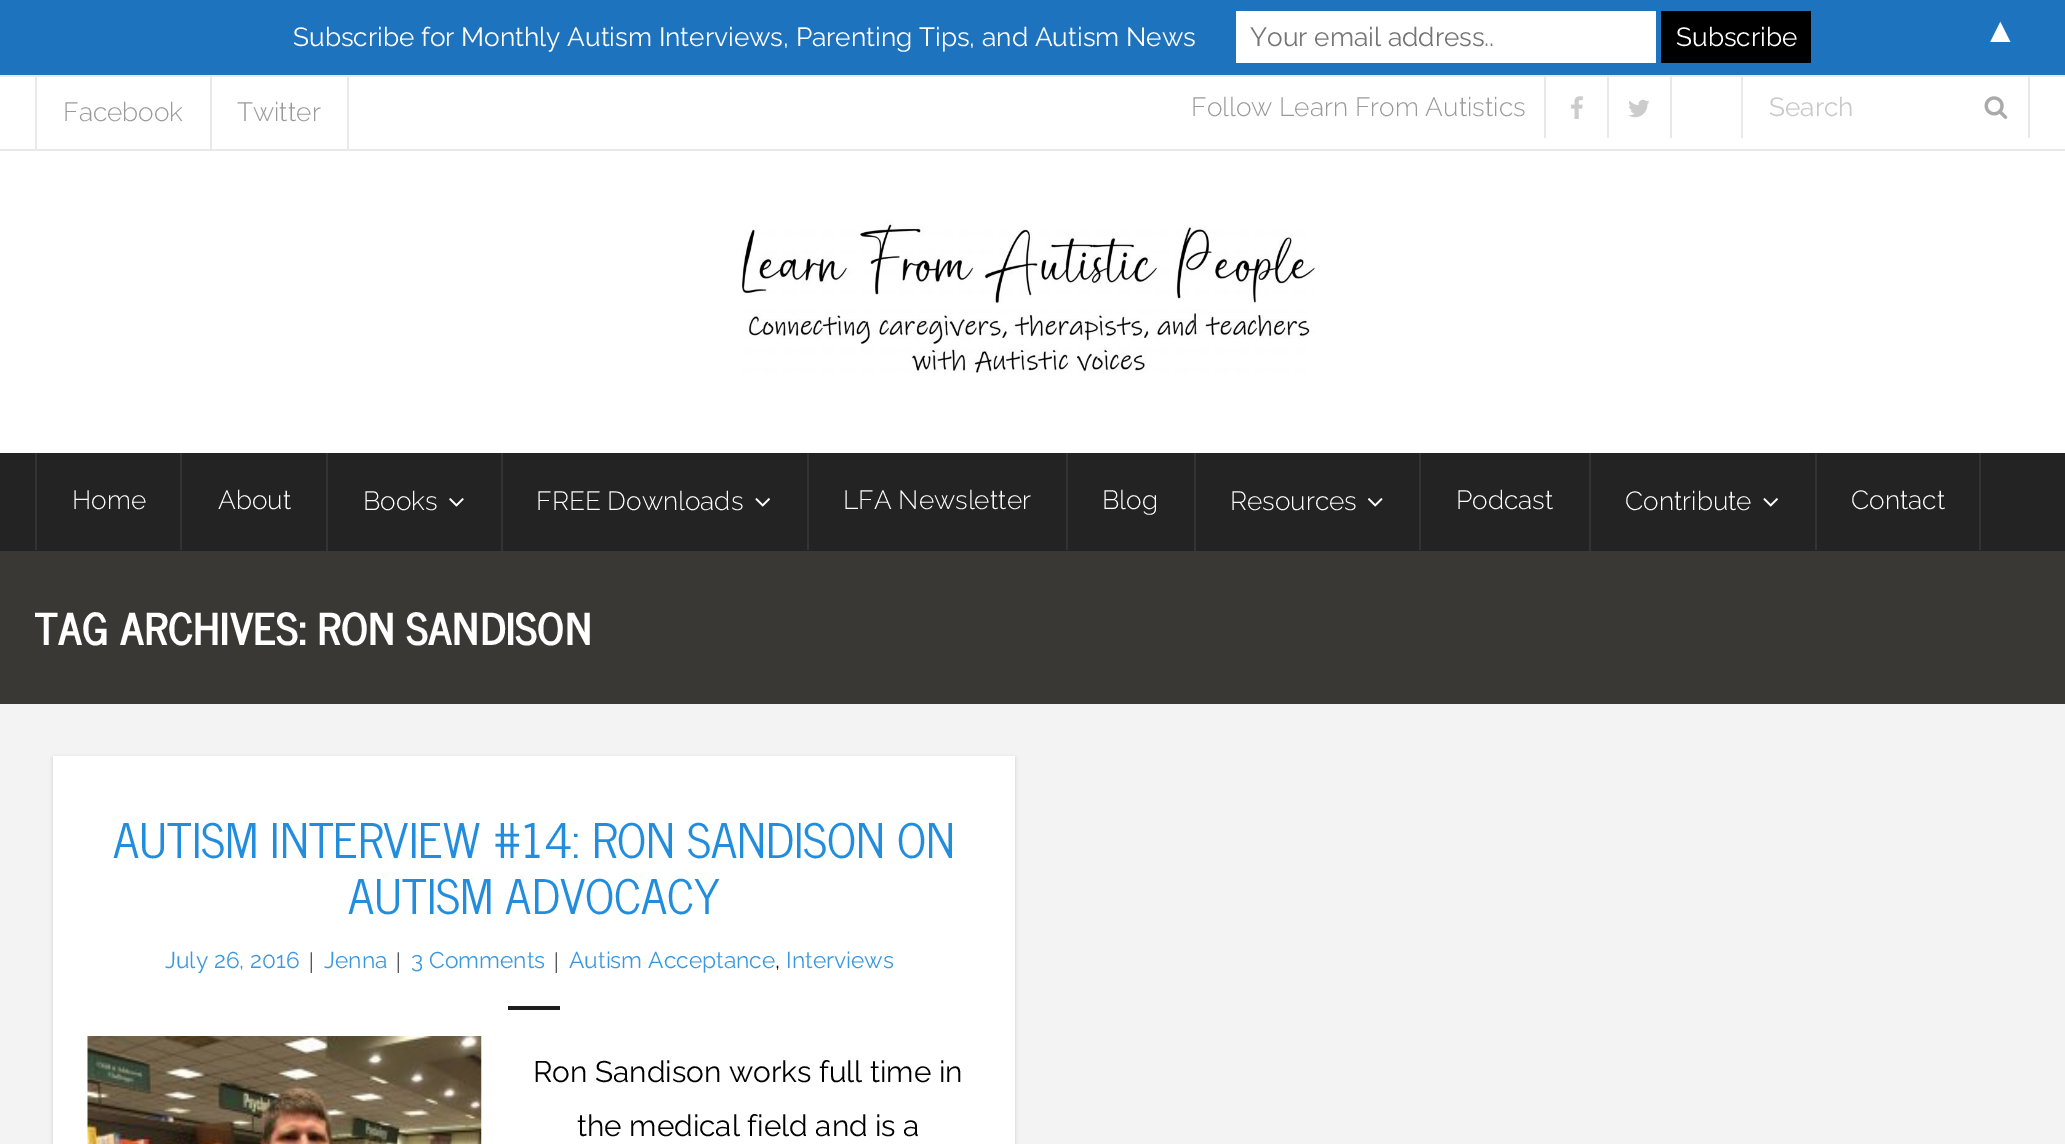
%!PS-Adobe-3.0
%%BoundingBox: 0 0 2065 1144
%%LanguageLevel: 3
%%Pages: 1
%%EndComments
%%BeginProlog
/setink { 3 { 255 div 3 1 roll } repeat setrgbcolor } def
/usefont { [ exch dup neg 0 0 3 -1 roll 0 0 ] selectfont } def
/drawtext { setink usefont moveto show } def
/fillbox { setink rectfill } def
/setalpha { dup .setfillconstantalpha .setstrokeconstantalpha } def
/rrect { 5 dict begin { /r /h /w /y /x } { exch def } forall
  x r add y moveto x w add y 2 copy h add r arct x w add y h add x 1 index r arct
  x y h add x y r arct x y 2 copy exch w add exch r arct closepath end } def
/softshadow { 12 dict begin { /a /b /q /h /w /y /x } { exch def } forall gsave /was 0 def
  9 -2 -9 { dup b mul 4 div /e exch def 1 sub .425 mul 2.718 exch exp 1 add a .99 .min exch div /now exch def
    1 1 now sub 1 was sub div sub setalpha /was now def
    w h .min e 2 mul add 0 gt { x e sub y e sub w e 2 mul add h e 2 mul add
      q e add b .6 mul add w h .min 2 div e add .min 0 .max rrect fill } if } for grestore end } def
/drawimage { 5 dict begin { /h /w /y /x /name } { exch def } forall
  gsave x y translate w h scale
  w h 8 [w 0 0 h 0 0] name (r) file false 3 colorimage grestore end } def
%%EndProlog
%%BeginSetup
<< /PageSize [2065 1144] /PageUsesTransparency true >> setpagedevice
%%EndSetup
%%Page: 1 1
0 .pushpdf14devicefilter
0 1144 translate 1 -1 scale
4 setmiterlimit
0 0 2065 1144 255 255 255 fillbox
0 0 2065 75 30 115 190 fillbox
(Subscribe for Monthly Autism Interviews, Parenting Tips, and Autism News) 293 46 /Raleway-Regular 26.25 255 255 255 drawtext
1236 11 420 52 255 255 255 fillbox
(Your email address..) 1250 46 /Raleway-Regular 26.25 117 117 117 drawtext
1661 11 150 52 0 0 0 fillbox
(Subscribe) 1676 46 /Raleway-Regular 26.25 255 255 255 drawtext
(▲) 1983 42 /LiberationSans-Regular 35 255 255 255 drawtext
0 75 2065 2 233 233 233 fillbox
0 149 2065 2 233 233 233 fillbox
35 77 2 72 233 233 233 fillbox
(Facebook) 63 121 /Raleway-Light 26.25 153 153 153 drawtext
347 77 2 72 233 233 233 fillbox
210 77 2 72 233 233 233 fillbox
(Twitter) 237 121 /Raleway-Light 26.25 153 153 153 drawtext
(Follow Learn From Autistics) 1191 116 /Raleway-Light 26.25 153 153 153 drawtext
1544 77 2 61 233 233 233 fillbox
(assets/img1.rgb) 1571 96 12 23 drawimage
1670 77 2 61 233 233 233 fillbox
1607 77 2 61 233 233 233 fillbox
(assets/img2.rgb) 1628 99 22 19 drawimage
2028 77 2 61 233 233 233 fillbox
1741 77 2 61 233 233 233 fillbox
(Search) 1769 116 /Raleway-Regular 26.25 202 202 202 drawtext
(assets/img3.rgb) 1984 96 24 23 drawimage
(assets/img4.rgb) 741 220 575 153 drawimage
0 453 2065 98 35 35 35 fillbox
35 453 2 97 51 51 51 fillbox
(Home) 72 509 /Raleway-Light 26.25 255 255 255 drawtext
180 453 2 97 51 51 51 fillbox
(About) 218 509 /Raleway-Light 26.25 255 255 255 drawtext
326 453 2 98 51 51 51 fillbox
(Books) 363 510 /Raleway-Light 26.25 255 255 255 drawtext
(assets/img5.rgb) 449 498 15 9 drawimage
501 453 2 98 51 51 51 fillbox
(FREE Downloads) 536 510 /Raleway-Light 26.25 255 255 255 drawtext
(assets/img6.rgb) 755 498 15 9 drawimage
807 453 2 97 51 51 51 fillbox
(LFA Newsletter) 843 509 /Raleway-Light 26.25 255 255 255 drawtext
1066 453 2 97 51 51 51 fillbox
(Blog) 1102 509 /Raleway-Light 26.25 255 255 255 drawtext
1194 453 2 98 51 51 51 fillbox
(Resources) 1230 510 /Raleway-Light 26.25 255 255 255 drawtext
(assets/img7.rgb) 1367 498 16 9 drawimage
1419 453 2 97 51 51 51 fillbox
(Podcast) 1456 509 /Raleway-Light 26.25 255 255 255 drawtext
1589 453 2 98 51 51 51 fillbox
(Contribute) 1625 510 /Raleway-Light 26.25 255 255 255 drawtext
(assets/img6.rgb) 1763 498 15 9 drawimage
1979 453 2 97 51 51 51 fillbox
1815 453 2 97 51 51 51 fillbox
(Contact) 1851 509 /Raleway-Light 26.25 255 255 255 drawtext
0 551 2065 153 58 56 53 fillbox
(TAG ARCHIVES: RON SANDISON) 35 645 /NewsCycle-Bold 43.75 255 255 255 drawtext
0 704 2065 440 243 243 243 fillbox
0 0 0 setink
53 758 962 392 0 2 0.15 softshadow
53 756 962 388 255 255 255 fillbox
(AUTISM INTERVIEW #14: RON SANDISON ON) 113 858 /NewsCycle-Regular 47.25 35 141 221 drawtext
(AUTISM ADVOCACY) 348 914 /NewsCycle-Regular 47.25 35 141 221 drawtext
(July 26, 2016) 165 968 /Raleway-Regular 22.75 57 152 224 drawtext
(|) 309 968 /LiberationSerif-Regular 22.75 26 26 26 drawtext
(Jenna) 324 968 /Raleway-Regular 22.75 57 152 224 drawtext
(|) 396 968 /LiberationSerif-Regular 22.75 26 26 26 drawtext
(3 Comments) 411 968 /Raleway-Regular 22.75 57 152 224 drawtext
(|) 554 968 /LiberationSerif-Regular 22.75 26 26 26 drawtext
(Autism Acceptance) 569 968 /Raleway-Regular 22.75 57 152 224 drawtext
(,) 775 968 /Raleway-Regular 22.75 0 0 0 drawtext
(Interviews) 786 968 /Raleway-Regular 22.75 57 152 224 drawtext
508 1006 52 4 30 30 30 fillbox
(assets/img8.rgb) 87 1036 395 108 drawimage
(Ron Sandison works full time in) 533 1082 /Raleway-Regular 29.75 0 0 0 drawtext
(the medical field and is a) 577 1136 /Raleway-Regular 29.75 0 0 0 drawtext
.poppdf14devicefilter showpage
%%EOF
